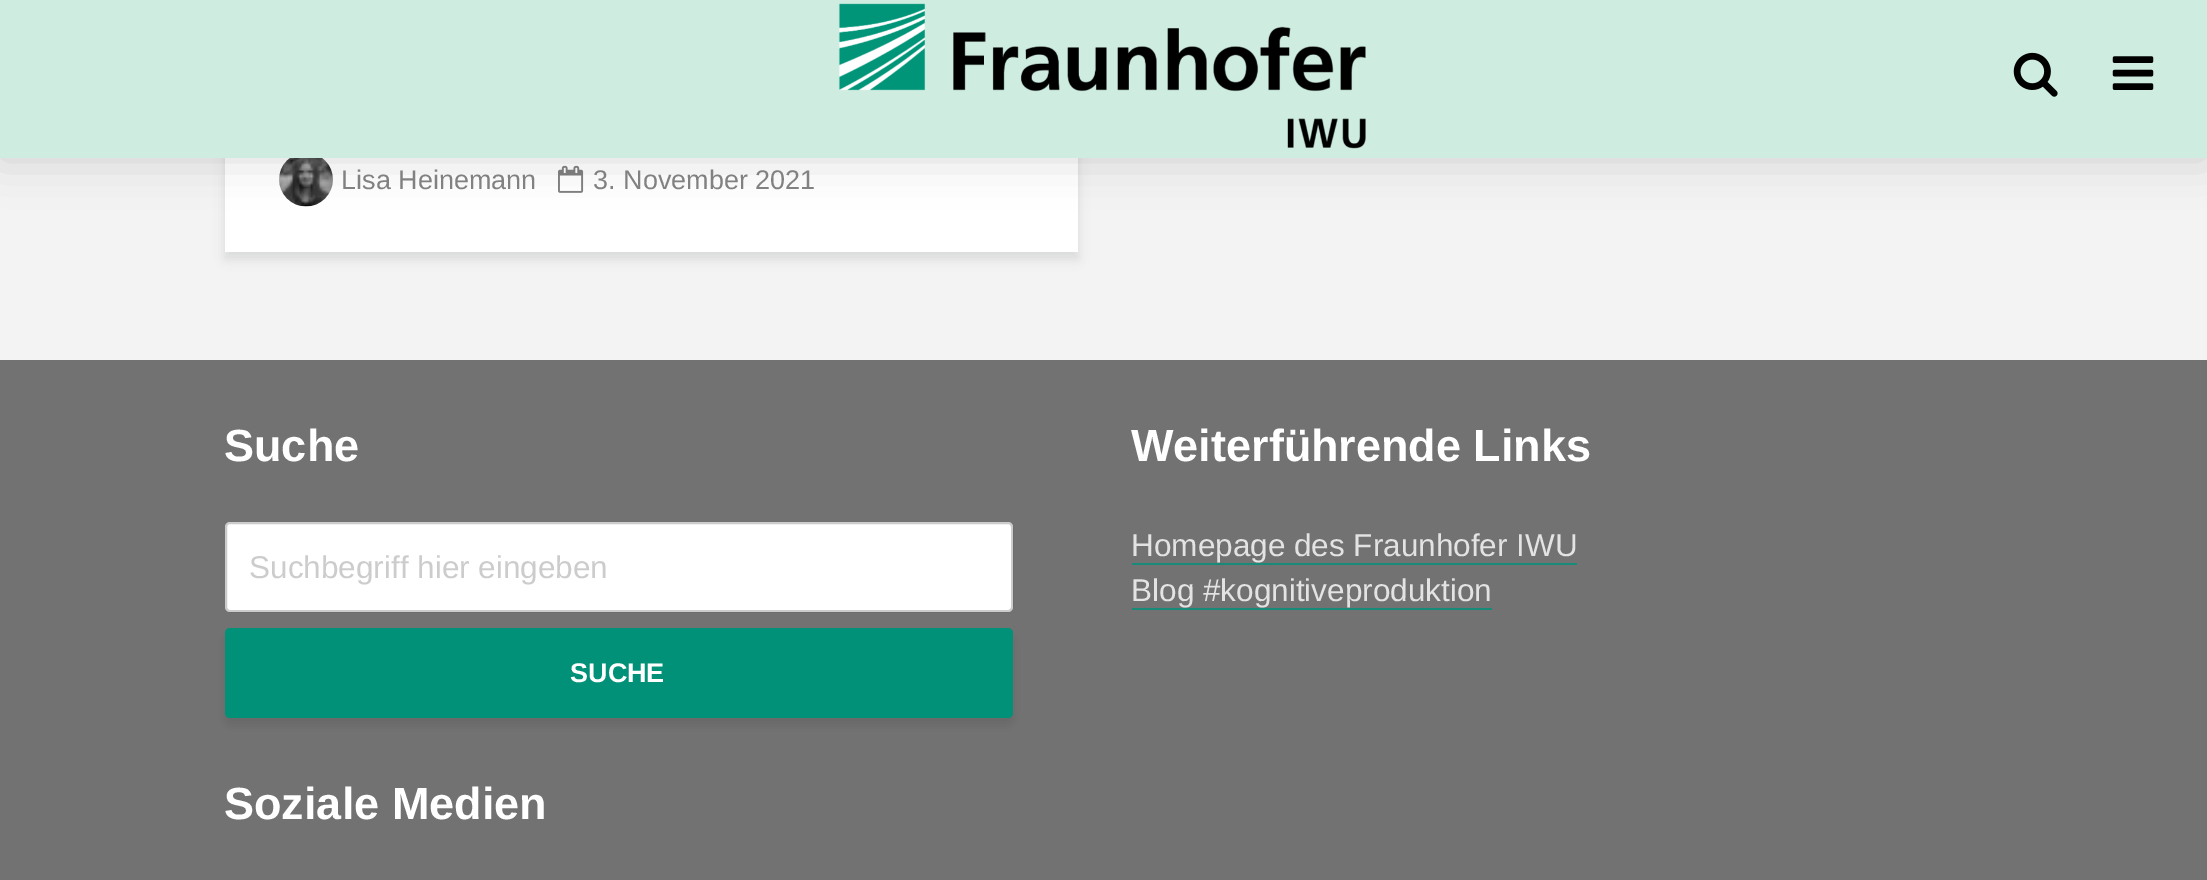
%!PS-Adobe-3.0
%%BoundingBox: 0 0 2207 880
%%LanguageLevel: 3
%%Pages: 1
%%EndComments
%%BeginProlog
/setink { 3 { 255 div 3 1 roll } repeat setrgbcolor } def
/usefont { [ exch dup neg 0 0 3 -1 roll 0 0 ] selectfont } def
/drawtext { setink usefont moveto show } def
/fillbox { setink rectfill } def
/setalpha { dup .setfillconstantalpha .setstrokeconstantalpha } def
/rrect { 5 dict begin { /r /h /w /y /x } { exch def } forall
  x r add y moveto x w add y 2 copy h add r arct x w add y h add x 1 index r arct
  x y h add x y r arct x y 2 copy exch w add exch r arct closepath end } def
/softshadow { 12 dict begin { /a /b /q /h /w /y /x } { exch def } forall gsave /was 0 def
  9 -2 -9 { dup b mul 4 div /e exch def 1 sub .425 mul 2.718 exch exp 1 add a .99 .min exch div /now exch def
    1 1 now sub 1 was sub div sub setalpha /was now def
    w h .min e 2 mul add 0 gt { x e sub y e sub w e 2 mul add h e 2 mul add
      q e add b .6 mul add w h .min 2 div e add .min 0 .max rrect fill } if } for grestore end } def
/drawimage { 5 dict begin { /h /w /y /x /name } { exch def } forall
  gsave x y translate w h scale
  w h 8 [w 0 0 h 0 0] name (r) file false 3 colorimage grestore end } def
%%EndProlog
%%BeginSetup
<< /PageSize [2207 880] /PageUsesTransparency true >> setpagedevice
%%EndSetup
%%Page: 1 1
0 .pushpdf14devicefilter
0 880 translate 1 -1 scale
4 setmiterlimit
0 0 2207 880 243 243 243 fillbox
0 1 1 setink
225 -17 853 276 0 5.5 0.1 softshadow
225 158 853 94 255 255 255 fillbox
(assets/img4.rgb) 279 158 54 49 drawimage
(assets/img5.rgb) 558 165 26 28 drawimage
0 0 0 setink
0 0 2207 158 0 22.5 0.15 softshadow
0 0 2207 158 206 237 224 fillbox
(assets/img1.rgb) 838 3 528 146 drawimage
(assets/img2.rgb) 2013 52 45 45 drawimage
(assets/img3.rgb) 2112 56 42 34 drawimage
(Lisa Heinemann) 341 189 /LiberationSans-Regular 27 129 129 129 drawtext
(3. November 2021) 593 189 /LiberationSans-Regular 27 129 129 129 drawtext
0 360 2207 520 114 114 114 fillbox
(Suche) 224 461 /LiberationSans-Bold 45 255 255 255 drawtext
225 522 788 90 5 rrect fill
0.2 setalpha
0 0 0 setink
2 setlinewidth
226 523 786 88 4 rrect stroke
1 setalpha
(Suchbegriff hier eingeben) 249 578 /LiberationSans-Regular 31.5 204 204 204 drawtext
0 0 0 setink
225 635 788 90 5 5.5 0.1 softshadow
1 145 121 setink
225 628 788 90 5 rrect fill
(SUCHE) 570 682 /LiberationSans-Bold 27 255 255 255 drawtext
(Soziale Medien) 224 819 /LiberationSans-Bold 45 255 255 255 drawtext
(Weiterführende Links) 1131 461 /LiberationSans-Bold 45 255 255 255 drawtext
(Homepage des Fraunhofer IWU) 1131 556 /LiberationSans-Regular 31.5 227 227 227 drawtext
1132 563 445 2 24 139 120 fillbox
(Blog #kognitiveproduktion) 1131 601 /LiberationSans-Regular 31.5 227 227 227 drawtext
1132 608 360 2 24 139 120 fillbox
.poppdf14devicefilter showpage
%%EOF
